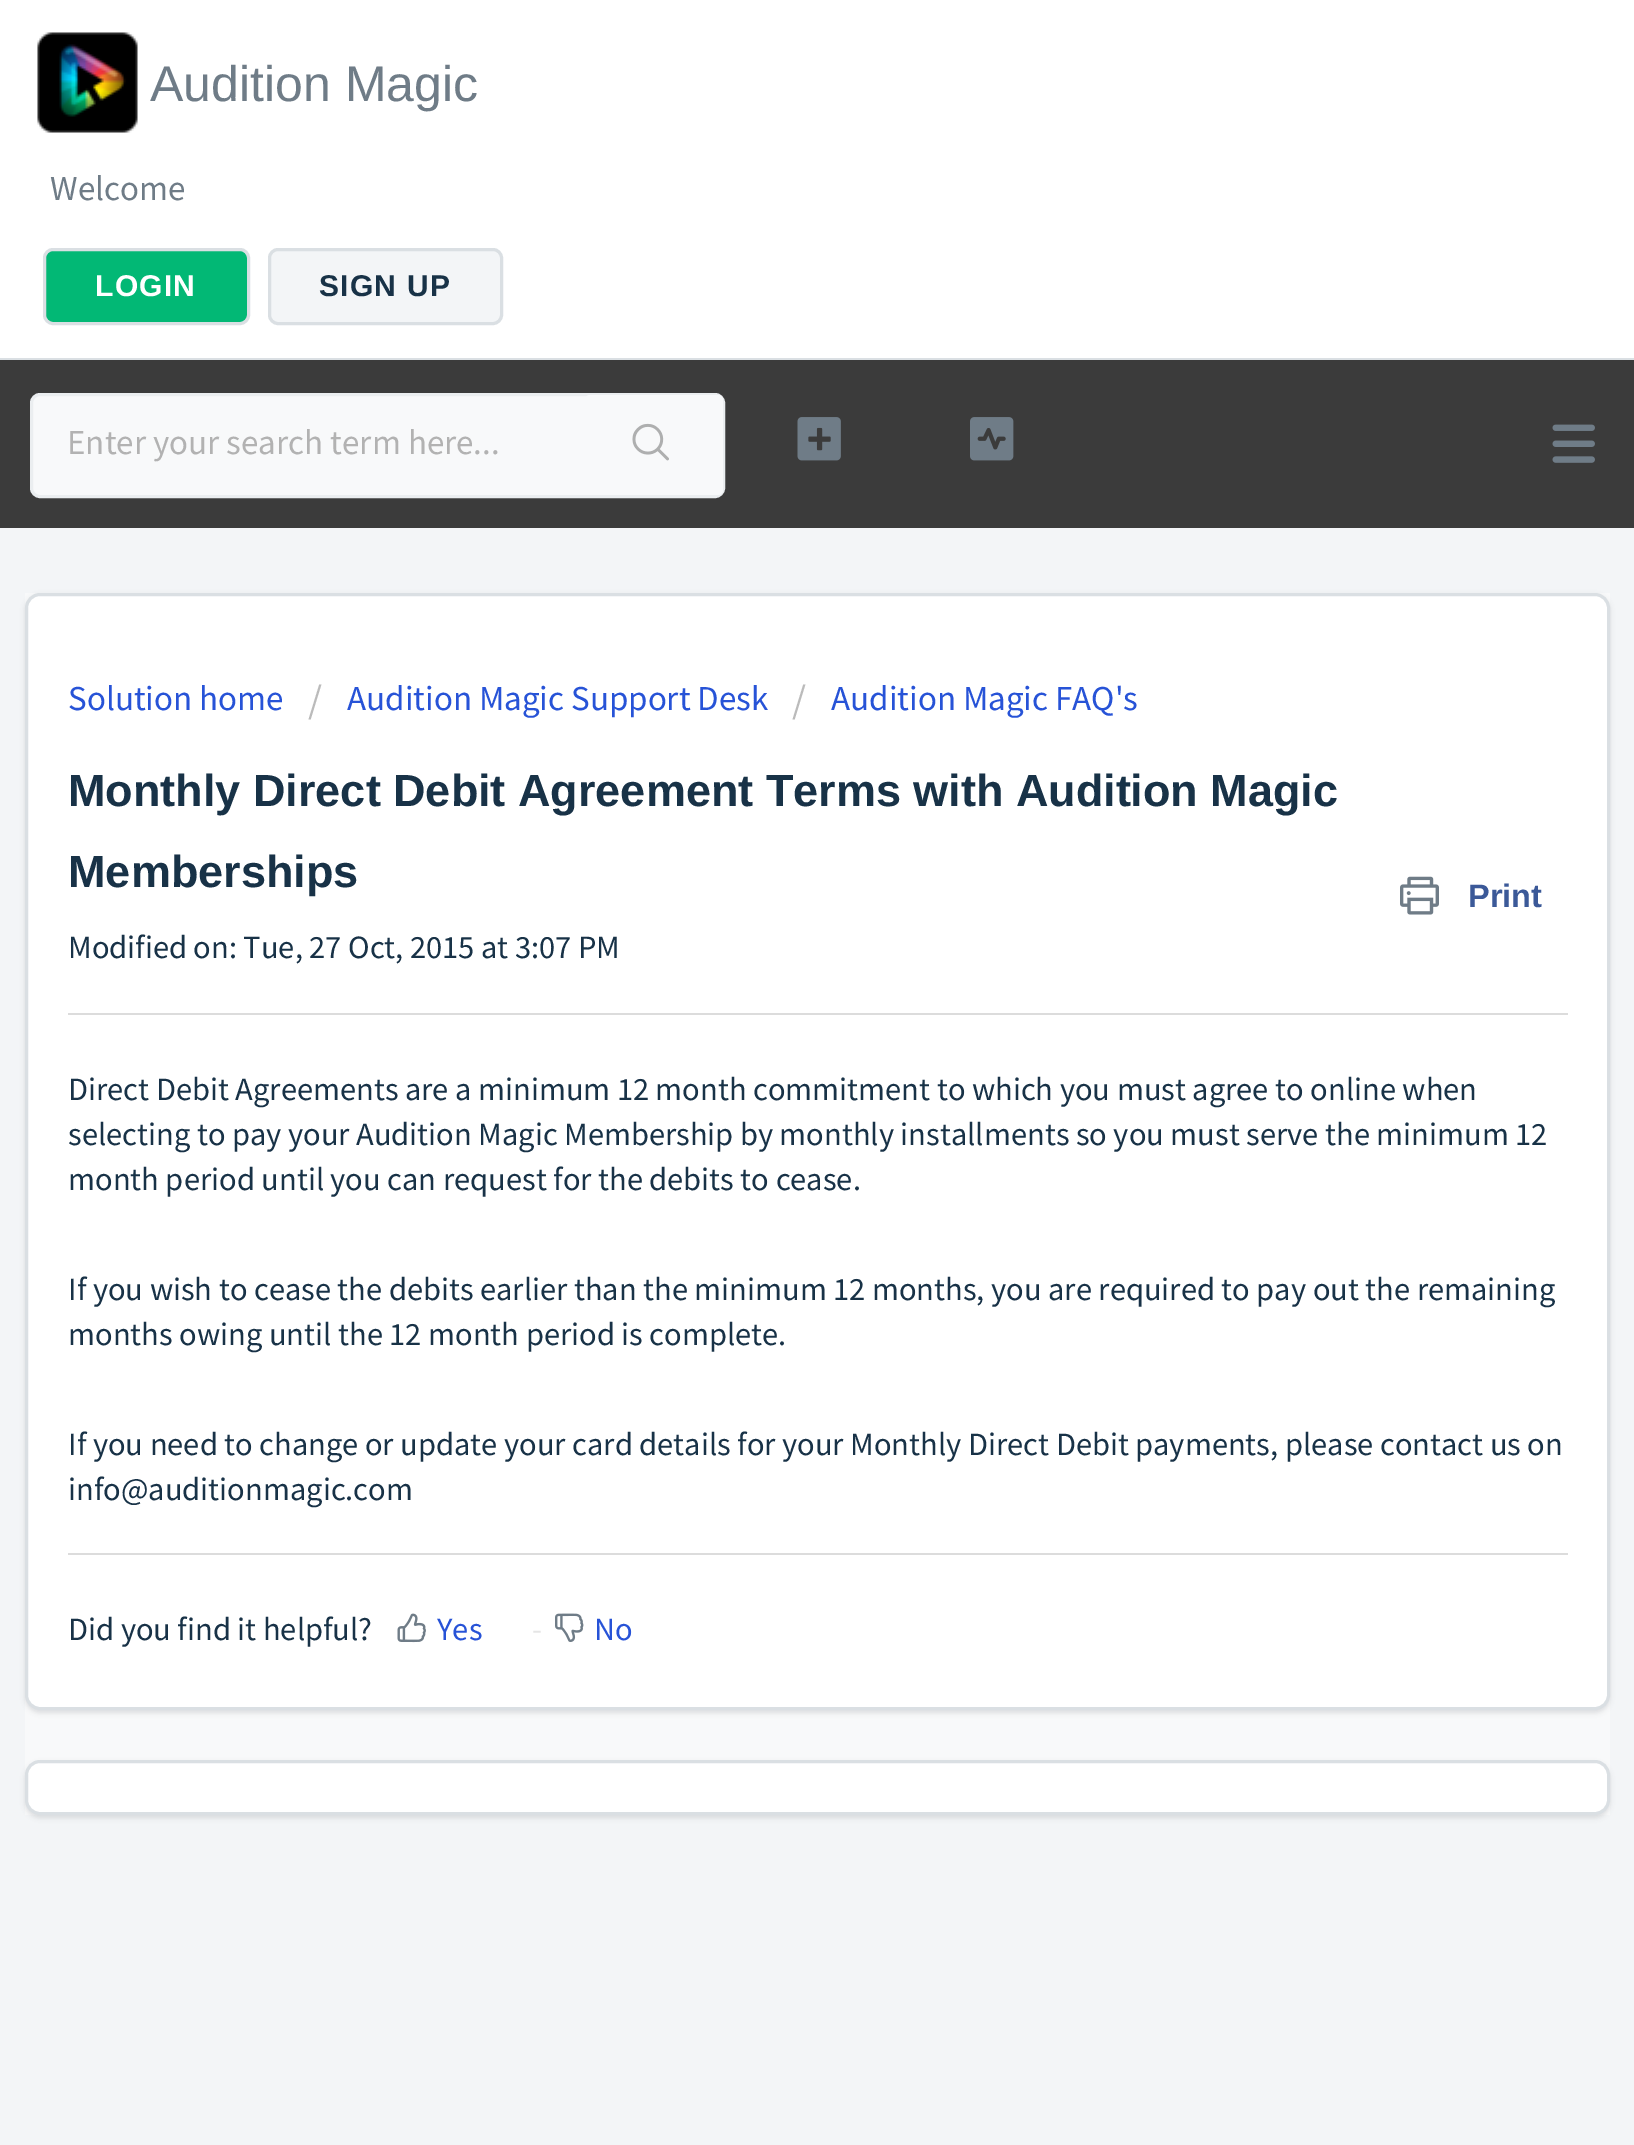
%!PS-Adobe-3.0
%%BoundingBox: 0 0 1634 2145
%%LanguageLevel: 3
%%Pages: 1
%%EndComments
%%BeginProlog
/setink { 3 { 255 div 3 1 roll } repeat setrgbcolor } def
/usefont { [ exch dup neg 0 0 3 -1 roll 0 0 ] selectfont } def
/drawtext { setink usefont moveto show } def
/fillbox { setink rectfill } def
/setalpha { dup .setfillconstantalpha .setstrokeconstantalpha } def
/rrect { 5 dict begin { /r /h /w /y /x } { exch def } forall
  x r add y moveto x w add y 2 copy h add r arct x w add y h add x 1 index r arct
  x y h add x y r arct x y 2 copy exch w add exch r arct closepath end } def
/softshadow { 12 dict begin { /a /b /q /h /w /y /x } { exch def } forall gsave /was 0 def
  9 -2 -9 { dup b mul 4 div /e exch def 1 sub .425 mul 2.718 exch exp 1 add a .99 .min exch div /now exch def
    1 1 now sub 1 was sub div sub setalpha /was now def
    w h .min e 2 mul add 0 gt { x e sub y e sub w e 2 mul add h e 2 mul add
      q e add b .6 mul add w h .min 2 div e add .min 0 .max rrect fill } if } for grestore end } def
/drawimage { 5 dict begin { /h /w /y /x /name } { exch def } forall
  gsave x y translate w h scale
  w h 8 [w 0 0 h 0 0] name (r) file false 3 colorimage grestore end } def
%%EndProlog
%%BeginSetup
<< /PageSize [1634 2145] /PageUsesTransparency true >> setpagedevice
%%EndSetup
%%Page: 1 1
0 .pushpdf14devicefilter
0 2145 translate 1 -1 scale
4 setmiterlimit
0 0 1634 2145 243 245 247 fillbox
0 0 1634 358 255 255 255 fillbox
0 358 1634 2 218 223 227 fillbox
(assets/img1.rgb) 37 32 101 101 drawimage
(Audition Magic) 150 101 /LiberationSans-Regular 50 111 124 135 drawtext
(Welcome) 50 200 /SourceSansPro-Regular 35 111 124 135 drawtext
2 184 117 setink
44.5 249.5 204 74 8.5 rrect gsave fill grestore
218 223 227 setink
3 setlinewidth
stroke
/LiberationSans-Bold 30 usefont
255 255 255 setink
95 296 moveto 1.25 0 (LOGIN) ashow
243 245 247 setink
269.5 249.5 232 74 8.5 rrect gsave fill grestore
218 223 227 setink
stroke
24 50 71 setink
319 296 moveto 1.25 0 (SIGN UP) ashow
0 360 1634 168 59 59 59 fillbox
(assets/img2.rgb) 1552 424 43 39 drawimage
248 249 250 setink
31.5 394.5 692 102 8.5 rrect gsave fill grestore
235 238 240 setink
stroke
(Enter your search term here...) 67 454 /SourceSansPro-Regular 35 178 178 178 drawtext
248 249 250 setink
585 395 138 100 5 rrect fill
(assets/img3.rgb) 632 423 37 38 drawimage
(assets/img4.rgb) 797 417 44 44 drawimage
(assets/img5.rgb) 970 417 44 44 drawimage
25 593 1585 1222 248 249 250 fillbox
63 63 68 setink
25 595 1585 1118 15 2.5 0.15 softshadow
255 255 255 setink
26.5 594.5 1582 1114 13.5 rrect gsave fill grestore
218 223 227 setink
stroke
(Solution home) 68 710 /SourceSansPro-Regular 35 39 83 215 drawtext
(/) 308 713 /SourceSansPro-Regular 40 187 187 187 drawtext
(Audition Magic Support Desk) 347 710 /SourceSansPro-Regular 35 39 83 215 drawtext
(/) 792 713 /SourceSansPro-Regular 40 187 187 187 drawtext
(Audition Magic FAQ's) 831 710 /SourceSansPro-Regular 35 39 83 215 drawtext
(Monthly Direct Debit Agreement Terms with Audition Magic) 68 806 /LiberationSans-Bold 45 24 50 71 drawtext
(Memberships) 68 887 /LiberationSans-Bold 45 24 50 71 drawtext
(assets/img6.rgb) 1400 876 39 39 drawimage
(Print) 1468 907 /LiberationSans-Bold 32.5 59 89 152 drawtext
(Modified on: Tue, 27 Oct, 2015 at 3:07 PM) 68 958 /SourceSansPro-Regular 32.5 24 50 71 drawtext
68 1013 1500 2 220 220 220 fillbox
(Direct Debit Agreements are a minimum 12 month commitment to which you must agree to online when) 68 1100 /SourceSansPro-Regular 32.5 24 50 71 drawtext
(selecting to pay your Audition Magic Membership by monthly installments so you must serve the minimum 12) 68 1145 /SourceSansPro-Regular 32.5 24 50 71 drawtext
(month period until you can request for the debits to cease.) 68 1190 /SourceSansPro-Regular 32.5 24 50 71 drawtext
(If you wish to cease the debits earlier than the minimum 12 months, you are required to pay out the remaining) 68 1300 /SourceSansPro-Regular 32.5 24 50 71 drawtext
(months owing until the 12 month period is complete.) 68 1345 /SourceSansPro-Regular 32.5 24 50 71 drawtext
(If you need to change or update your card details for your Monthly Direct Debit payments, please contact us on) 68 1455 /SourceSansPro-Regular 32.5 24 50 71 drawtext
(info@auditionmagic.com) 68 1500 /SourceSansPro-Regular 32.5 24 50 71 drawtext
68 1553 1500 2 220 220 220 fillbox
(Did you find it helpful?) 68 1640 /SourceSansPro-Regular 32.5 24 50 71 drawtext
(assets/img7.rgb) 397 1613 29 30 drawimage
(Yes) 437 1640 /SourceSansPro-Regular 32.5 39 83 215 drawtext
(-) 532 1640 /SourceSansPro-Regular 32.5 229 229 229 drawtext
(assets/img8.rgb) 555 1613 29 29 drawimage
(No) 594 1640 /SourceSansPro-Regular 32.5 39 83 215 drawtext
63 63 68 setink
25 1763 1585 55 15 2.5 0.15 softshadow
255 255 255 setink
26.5 1761.5 1582 52 13.5 rrect gsave fill grestore
218 223 227 setink
stroke
.poppdf14devicefilter showpage
%%EOF
